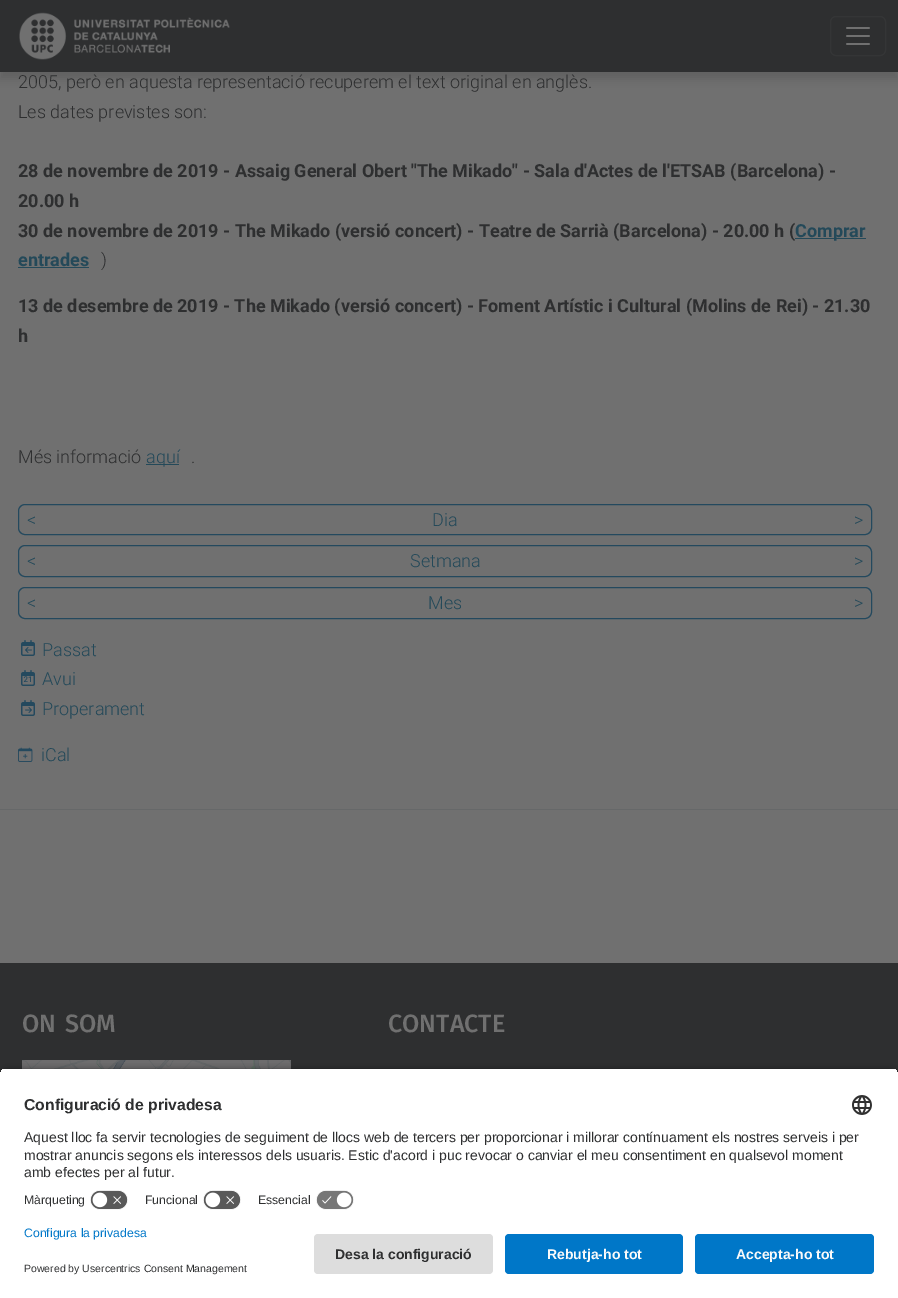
%!PS-Adobe-3.0
%%BoundingBox: 0 0 898 1298
%%LanguageLevel: 3
%%Pages: 1
%%EndComments
%%BeginProlog
/setink { 3 { 255 div 3 1 roll } repeat setrgbcolor } def
/usefont { [ exch dup neg 0 0 3 -1 roll 0 0 ] selectfont } def
/drawtext { setink usefont moveto show } def
/fillbox { setink rectfill } def
/setalpha { dup .setfillconstantalpha .setstrokeconstantalpha } def
/rrect { 5 dict begin { /r /h /w /y /x } { exch def } forall
  x r add y moveto x w add y 2 copy h add r arct x w add y h add x 1 index r arct
  x y h add x y r arct x y 2 copy exch w add exch r arct closepath end } def
/softshadow { 12 dict begin { /a /b /q /h /w /y /x } { exch def } forall gsave /was 0 def
  9 -2 -9 { dup b mul 4 div /e exch def 1 sub .425 mul 2.718 exch exp 1 add a .99 .min exch div /now exch def
    1 1 now sub 1 was sub div sub setalpha /was now def
    w h .min e 2 mul add 0 gt { x e sub y e sub w e 2 mul add h e 2 mul add
      q e add b .6 mul add w h .min 2 div e add .min 0 .max rrect fill } if } for grestore end } def
/drawimage { 5 dict begin { /h /w /y /x /name } { exch def } forall
  gsave x y translate w h scale
  w h 8 [w 0 0 h 0 0] name (r) file false 3 colorimage grestore end } def
%%EndProlog
%%BeginSetup
<< /PageSize [898 1298] /PageUsesTransparency true >> setpagedevice
%%EndSetup
%%Page: 1 1
0 .pushpdf14devicefilter
0 1298 translate 1 -1 scale
4 setmiterlimit
0 0 898 1298 112 112 112 fillbox
36 36 36 setink
0 7 898 72 0 4 0.2 softshadow
0 0 898 72 46 47 48 fillbox
(assets/img1.rgb) 19 12 211 48 drawimage
52 53 54 setink
830.5 16.5 55 39 5.5 rrect stroke
(assets/img2.rgb) 846 27 24 18 drawimage
(2005, però en aquesta representació recuperem el text original en anglès.) 18 88 /Roboto-Light 18 46 47 48 drawtext
(Les dates previstes son:) 18 118 /Roboto-Light 18 46 47 48 drawtext
(28 de novembre de 2019 - Assaig General Obert "The Mikado" - Sala d'Actes de l'ETSAB \(Barcelona\) -) 18 177 /Roboto-Bold 18 46 47 48 drawtext
(20.00 h) 18 207 /Roboto-Bold 18 46 47 48 drawtext
(30 de novembre de 2019 - The Mikado \(versió concert\) - Teatre de Sarrià \(Barcelona\) - 20.00 h \() 18 237 /Roboto-Bold 18 46 47 48 drawtext
795 238 71 1 36 73 89 fillbox
(Comprar) 795 237 /Roboto-Bold 18 36 73 89 drawtext
(entrades) 18 266 /Roboto-Bold 18 36 73 89 drawtext
18 267 71 1 36 73 89 fillbox
(\)) 101 266 /Roboto-Light 18 46 47 48 drawtext
(13 de desembre de 2019 - The Mikado \(versió concert\) - Foment Artístic i Cultural \(Molins de Rei\) - 21.30) 18 312 /Roboto-Bold 18 46 47 48 drawtext
(h) 18 342 /Roboto-Bold 18 46 47 48 drawtext
(Més informació) 18 463 /Roboto-Light 18 46 47 48 drawtext
146 464 33 1 36 73 89 fillbox
(aquí) 146 463 /Roboto-Light 18 36 73 89 drawtext
(.) 191 463 /Roboto-Light 18 46 47 48 drawtext
36 73 94 setink
18.5 504.5 853 30 6.5 rrect stroke
(<) 27 526 /Roboto-Light 18 36 73 89 drawtext
(Dia) 432 526 /Roboto-Light 18 36 73 89 drawtext
(>) 854 526 /Roboto-Light 18 36 73 89 drawtext
36 73 94 setink
18.5 545.5 853 31 6.5 rrect stroke
(<) 27 567 /Roboto-Light 18 36 73 89 drawtext
(Setmana) 410 567 /Roboto-Light 18 36 73 89 drawtext
(>) 854 567 /Roboto-Light 18 36 73 89 drawtext
36 73 94 setink
18.5 587.5 853 31 6.5 rrect stroke
(<) 27 609 /Roboto-Light 18 36 73 89 drawtext
(Mes) 428 609 /Roboto-Light 18 36 73 89 drawtext
(>) 854 609 /Roboto-Light 18 36 73 89 drawtext
(assets/img3.rgb) 21 640 14 16 drawimage
(assets/img4.rgb) 25 647 7 6 drawimage
(Passat) 42 656 /Roboto-Light 18 36 73 89 drawtext
(21) 23 682 /Roboto-Medium 8 36 73 89 drawtext
(assets/img5.rgb) 21 670 14 16 drawimage
(Avui) 42 685 /Roboto-Light 18 36 73 89 drawtext
(assets/img3.rgb) 21 700 14 16 drawimage
(assets/img6.rgb) 25 707 7 6 drawimage
(Properament) 42 715 /Roboto-Light 18 36 73 89 drawtext
(assets/img7.rgb) 18 747 15 15 drawimage
(iCal) 41 761 /Roboto-Light 18 36 73 89 drawtext
0 963 898 113 46 47 48 fillbox
0 809 898 1 102 104 105 fillbox
(ON) 22 1032 /FiraSans-Medium 25 112 112 112 drawtext
(SOM) 65 1032 /FiraSans-Medium 25 112 112 112 drawtext
(assets/img8.rgb) 22 1060 269 9 drawimage
(CONTACTE) 388 1032 /FiraSans-Medium 25 112 112 112 drawtext
0 0 0 setink
0 1071 898 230 8 3.5 0.8 softshadow
gsave
8 1068 moveto 890 1068 lineto 894.5 1068 898 1071.5 898 1076 curveto 898 1226 lineto 0 1226 lineto 0 1076 lineto 0 1071.5 3.5 1068 8 1068 curveto closepath clip newpath
0 1069 898 157 255 255 255 fillbox
0 1069 898 117 255 255 255 fillbox
grestore
(Configuració de privadesa) 24 1110 /LiberationSans-Bold 15.75 46 47 48 drawtext
(assets/img9.rgb) 852 1095 20 20 drawimage
(Aquest lloc fa servir tecnologies de seguiment de llocs web de tercers per proporcionar i millorar contínuament els nostres serveis i per) 24 1142 /LiberationSans-Regular 14 46 47 48 drawtext
(mostrar anuncis segons els interessos dels usuaris. Estic d'acord i puc revocar o canviar el meu consentiment en qualsevol moment) 24 1160 /LiberationSans-Regular 14 46 47 48 drawtext
(amb efectes per al futur.) 24 1177 /LiberationSans-Regular 14 46 47 48 drawtext
(Màrqueting) 24 1204 /LiberationSans-Regular 12.25 46 47 48 drawtext
(assets/img10.rgb) 90 1190 38 20 drawimage
(Funcional) 145 1204 /LiberationSans-Regular 12.25 46 47 48 drawtext
(assets/img10.rgb) 203 1190 38 20 drawimage
(Essencial) 258 1204 /LiberationSans-Regular 12.25 46 47 48 drawtext
(assets/img11.rgb) 316 1190 38 20 drawimage
0 1226 898 72 255 255 255 fillbox
(Configura la privadesa) 24 1237 /LiberationSans-Regular 12.25 0 119 200 drawtext
(Powered by Usercentrics Consent Management) 24 1272 /LiberationSans-Regular 10.5 46 47 48 drawtext
221 221 221 setink
314 1234 179 40 4 rrect fill
(Desa la configuració) 335 1259 /LiberationSans-Bold 14 46 47 48 drawtext
0 119 200 setink
505 1234 178 40 4 rrect fill
(Rebutja-ho tot) 547 1259 /LiberationSans-Bold 14 250 250 250 drawtext
0 119 200 setink
695 1234 179 40 4 rrect fill
(Accepta-ho tot) 736 1259 /LiberationSans-Bold 14 250 250 250 drawtext
.poppdf14devicefilter showpage
%%EOF
